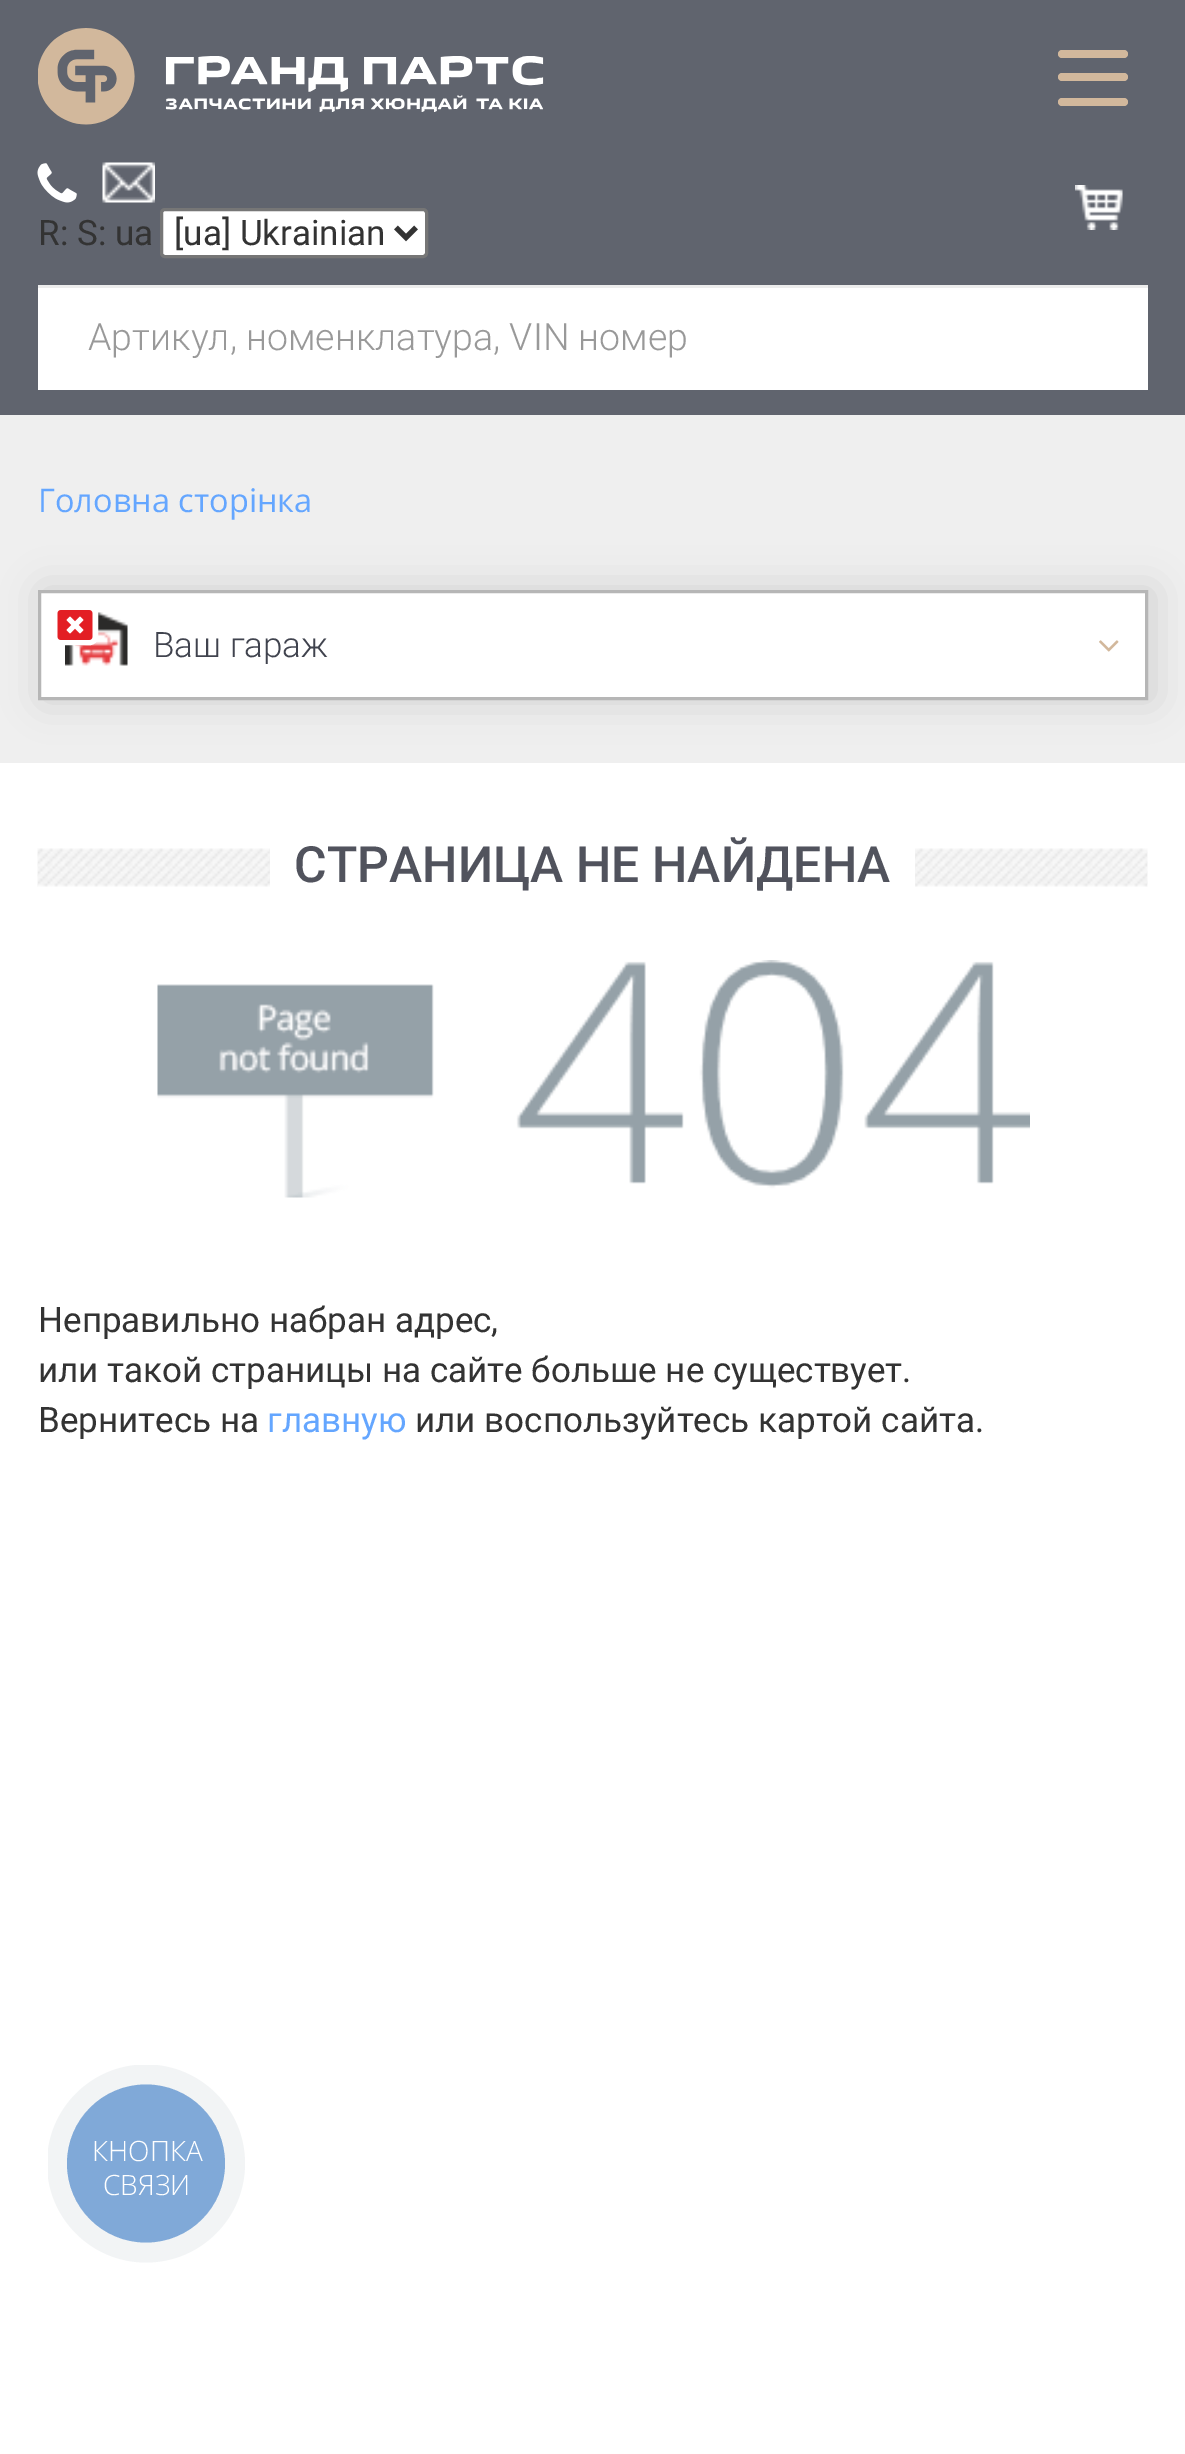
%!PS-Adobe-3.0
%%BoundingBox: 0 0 1185 2454
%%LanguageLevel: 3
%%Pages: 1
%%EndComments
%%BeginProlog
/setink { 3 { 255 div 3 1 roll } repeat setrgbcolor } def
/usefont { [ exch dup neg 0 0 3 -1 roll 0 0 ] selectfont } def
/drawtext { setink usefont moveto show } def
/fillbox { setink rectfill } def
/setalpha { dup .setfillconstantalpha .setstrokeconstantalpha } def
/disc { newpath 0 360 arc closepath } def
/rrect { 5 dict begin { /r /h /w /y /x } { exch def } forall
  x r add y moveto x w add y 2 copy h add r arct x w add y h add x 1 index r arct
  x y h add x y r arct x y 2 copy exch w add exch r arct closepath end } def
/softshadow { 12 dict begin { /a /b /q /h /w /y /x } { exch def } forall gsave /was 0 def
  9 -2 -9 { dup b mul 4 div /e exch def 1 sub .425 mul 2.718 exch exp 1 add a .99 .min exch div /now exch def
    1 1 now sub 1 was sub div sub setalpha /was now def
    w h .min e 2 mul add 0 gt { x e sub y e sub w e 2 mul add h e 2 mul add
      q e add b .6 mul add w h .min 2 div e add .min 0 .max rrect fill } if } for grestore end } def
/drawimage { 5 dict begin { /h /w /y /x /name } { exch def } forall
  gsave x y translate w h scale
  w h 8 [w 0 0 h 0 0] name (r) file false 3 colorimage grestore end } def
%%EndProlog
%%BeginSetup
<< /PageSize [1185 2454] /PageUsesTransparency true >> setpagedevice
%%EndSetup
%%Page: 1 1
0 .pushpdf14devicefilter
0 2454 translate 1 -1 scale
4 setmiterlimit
0 0 1185 2454 255 255 255 fillbox
0 0 1185 415 96 100 110 fillbox
(assets/img1.rgb) 38 28 506 97 drawimage
210 184 156 setink
1058 50 70 8 4 rrect fill
1058 73 70 8 4 rrect fill
1058 98 70 8 4 rrect fill
(assets/img2.rgb) 1075 185 48 45 drawimage
(assets/img3.rgb) 37 163 40 40 drawimage
(assets/img4.rgb) 102 162 53 41 drawimage
(R: S: ua) 38 245 /Roboto-Regular 35 51 51 51 drawtext
255 255 255 setink
161.5 209.5 265 47 3.5 rrect gsave fill grestore
118 118 118 setink
3 setlinewidth
stroke
51 51 51 setink
5 setlinewidth
396 227.5 moveto 406 237.5 lineto 416 227.5 lineto stroke
([ua] Ukrainian) 174 245 /Roboto-Regular 35 51 51 51 drawtext
38 288 1110 102 255 255 255 fillbox
38 285 1110 3 236 236 236 fillbox
(Артикул, номенклатура, VIN номер) 88 350 /Roboto-Light 37.5 153 153 153 drawtext
0 415 1185 348 239 239 239 fillbox
(Головна сторінка) 38 512 /OpenSans-Regular 32.5 100 166 255 drawtext
0 0 0 setink
43 590 1110 110 0 20 0.13 softshadow
255 255 255 setink
39.5 591.5 moveto 1146.5 591.5 lineto 1146.5 698.5 lineto 39.5 698.5 lineto closepath gsave fill grestore
182 182 182 setink
3 setlinewidth
stroke
(assets/img6.rgb) 65 612 63 54 drawimage
255 255 255 setink
55.5 607.5 40 35 5.5 rrect gsave fill grestore
5 setlinewidth
stroke
(assets/img5.rgb) 57 610 36 30 drawimage
(Ваш гараж) 153 657 /Roboto-Light 35 64 67 78 drawtext
(assets/img7.rgb) 1099 640 20 12 drawimage
(assets/img8.rgb) 37 848 1111 39 drawimage
270 848 645 39 255 255 255 fillbox
(СТРАНИЦА НЕ НАЙДЕНА) 294 882 /Roboto-Medium 50 81 83 93 drawtext
(assets/img9.rgb) 157 960 873 238 drawimage
(Неправильно набран адрес,) 38 1332 /Roboto-Regular 35 51 51 51 drawtext
(или такой страницы на сайте больше не существует.) 38 1382 /Roboto-Regular 35 51 51 51 drawtext
(Вернитесь на) 38 1432 /Roboto-Regular 35 51 51 51 drawtext
(главную) 267 1432 /Roboto-Regular 35 100 166 255 drawtext
(или воспользуйтесь картой сайта.) 415 1432 /Roboto-Regular 35 51 51 51 drawtext
gsave
48 2065 197 198 rectclip
242 244 245 setink
146 2163.5 99 disc fill
grestore
128 169 216 setink
146 2163.5 79 disc fill
(КНОПКА) 92 2161 /OpenSans-Light 28 255 255 255 drawtext
(СВЯЗИ) 103 2195 /OpenSans-Light 28 255 255 255 drawtext
.poppdf14devicefilter showpage
%%EOF
